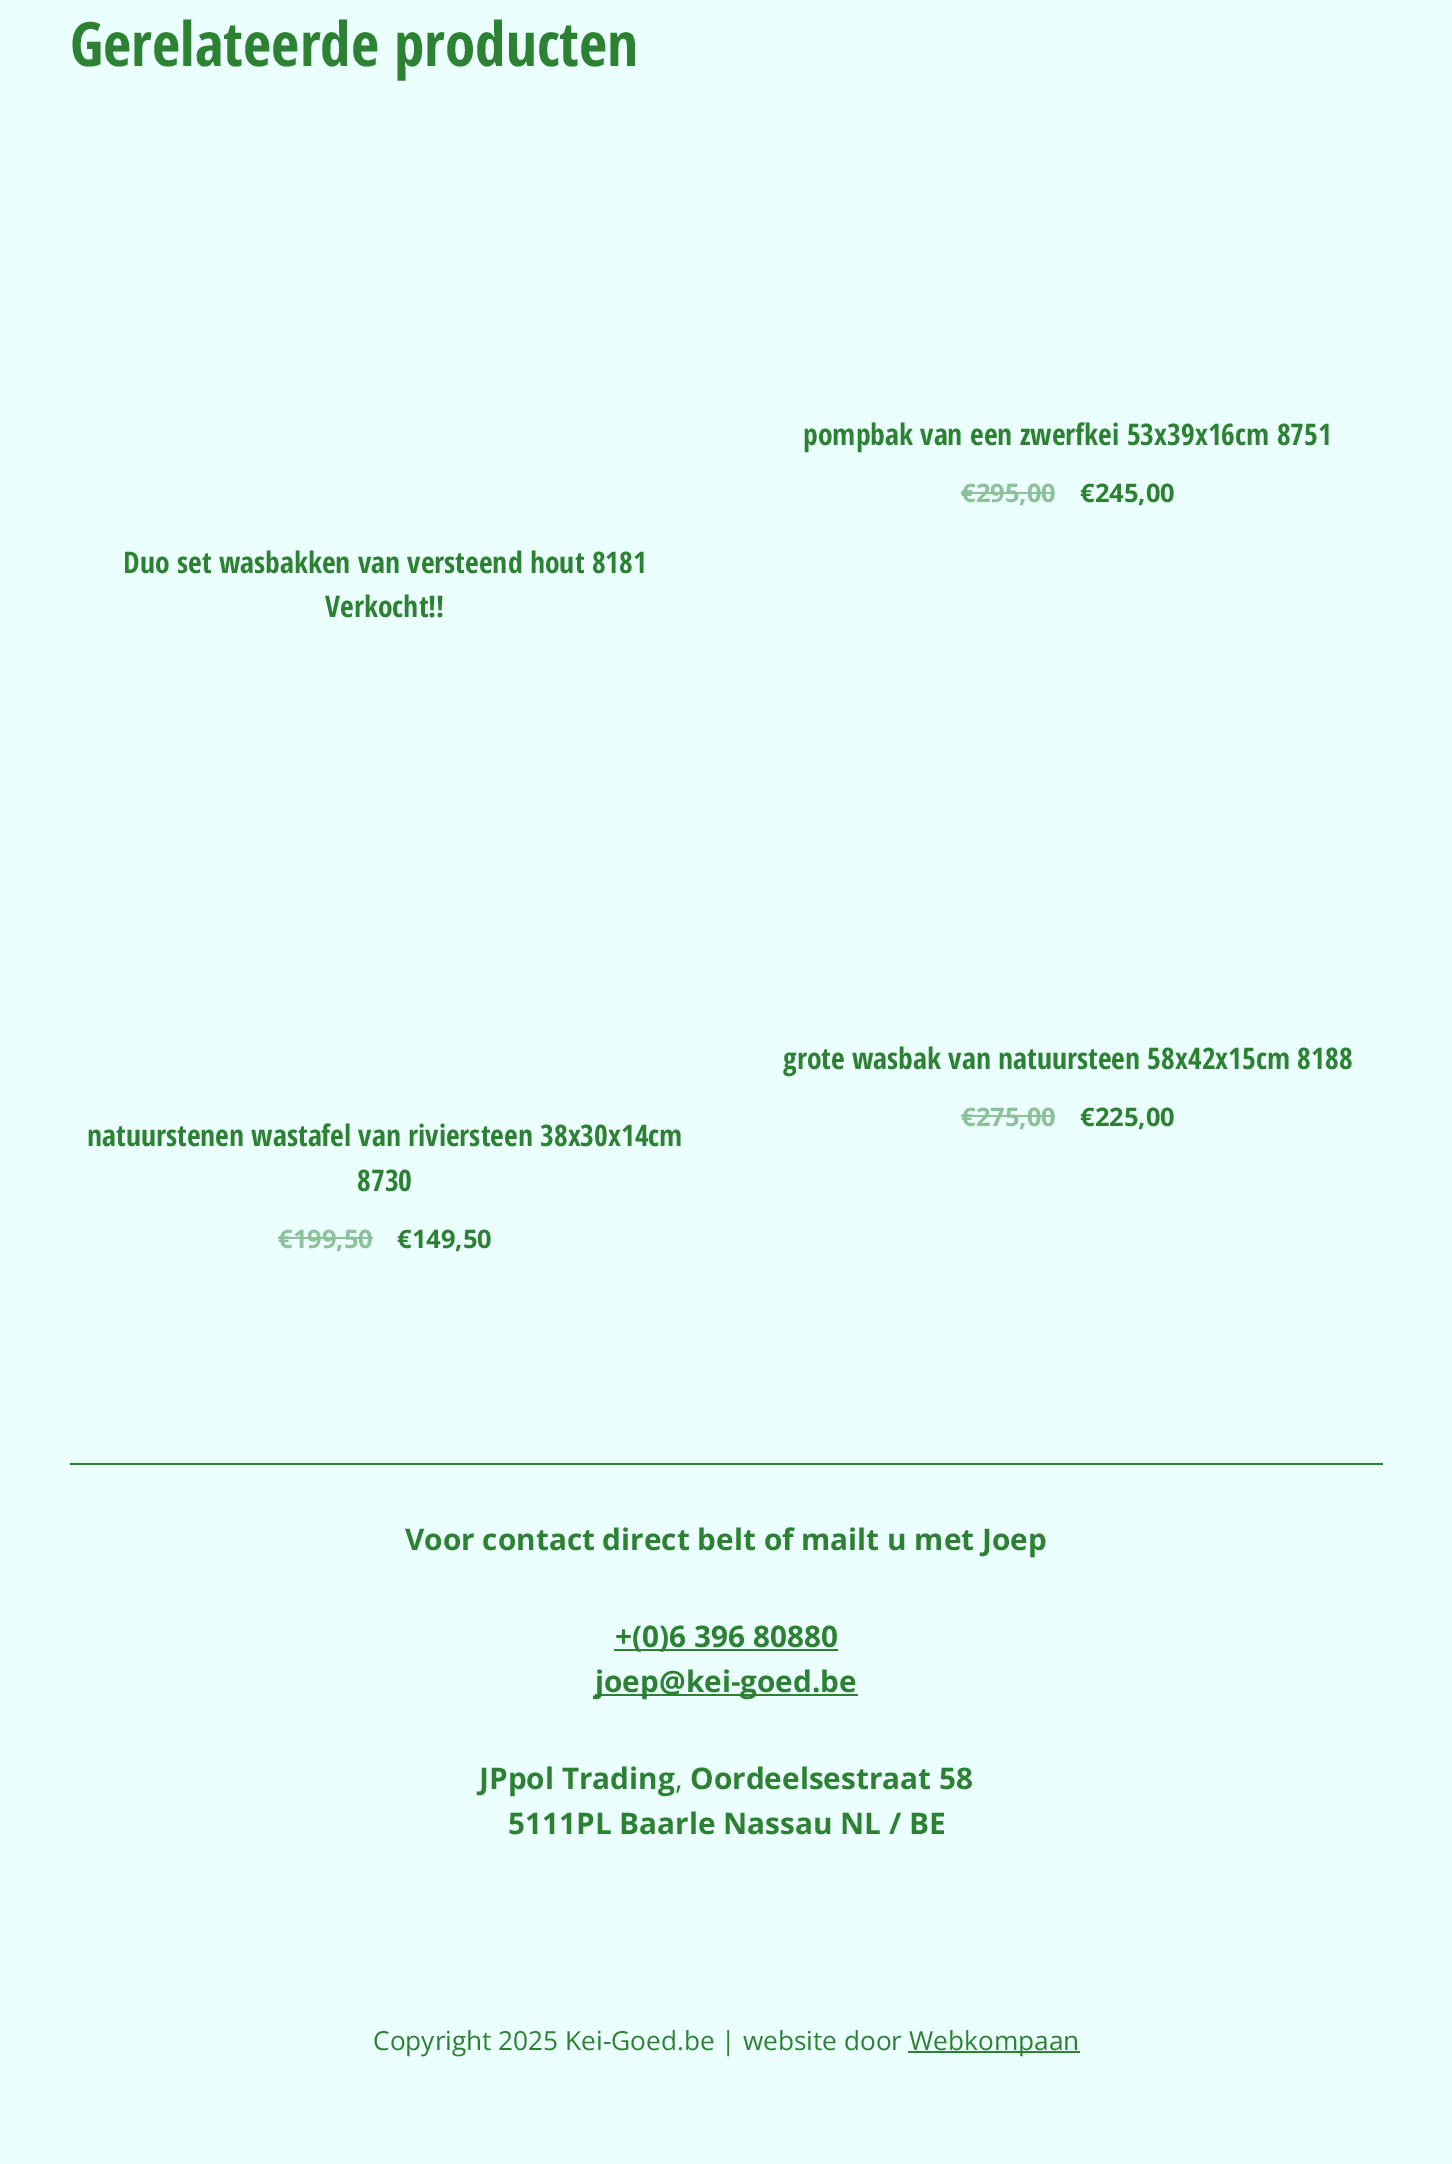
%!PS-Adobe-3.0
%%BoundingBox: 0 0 1452 2164
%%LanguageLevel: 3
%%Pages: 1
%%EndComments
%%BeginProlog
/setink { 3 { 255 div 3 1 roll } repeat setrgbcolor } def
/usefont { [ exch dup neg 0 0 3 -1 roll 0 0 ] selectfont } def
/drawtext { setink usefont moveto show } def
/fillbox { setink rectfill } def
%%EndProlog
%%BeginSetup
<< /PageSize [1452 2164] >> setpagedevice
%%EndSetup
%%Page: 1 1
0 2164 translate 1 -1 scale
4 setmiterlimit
0 0 1452 2164 236 255 255 fillbox
(Gerelateerde producten) 70 66 /OpenSansCondensed-Bold 61.25 44 130 50 drawtext
(pompbak van een zwerfkei 53x39x16cm 8751) 803 445 /OpenSansCondensed-Bold 29.75 44 130 50 drawtext
(€295,00) 961 502 /OpenSans-Bold 25.5 140 193 153 drawtext
961 492 94 2 140 193 153 fillbox
(€245,00) 1080 502 /OpenSans-Bold 25.5 44 130 50 drawtext
(Duo set wasbakken van versteend hout 8181) 123 573 /OpenSansCondensed-Bold 29.75 44 130 50 drawtext
(Verkocht!!) 325 617 /OpenSansCondensed-Bold 29.75 44 130 50 drawtext
(grote wasbak van natuursteen 58x42x15cm 8188) 783 1069 /OpenSansCondensed-Bold 29.75 44 130 50 drawtext
(€275,00) 961 1126 /OpenSans-Bold 25.5 140 193 153 drawtext
961 1115 94 2 140 193 153 fillbox
(€225,00) 1080 1126 /OpenSans-Bold 25.5 44 130 50 drawtext
(natuurstenen wastafel van riviersteen 38x30x14cm) 87 1146 /OpenSansCondensed-Bold 29.75 44 130 50 drawtext
(8730) 357 1191 /OpenSansCondensed-Bold 29.75 44 130 50 drawtext
(€199,50) 278 1248 /OpenSans-Bold 25.5 140 193 153 drawtext
278 1237 95 2 140 193 153 fillbox
(€149,50) 397 1248 /OpenSans-Bold 25.5 44 130 50 drawtext
70 1463 1313 2 44 130 50 fillbox
(Voor contact direct belt of mailt u met Joep) 405 1550 /OpenSans-Bold 29.75 44 130 50 drawtext
614 1649 224 2 44 130 50 fillbox
(+\(0\)6 396 80880) 615 1647 /OpenSans-Bold 29.75 44 130 50 drawtext
595 1694 263 2 44 130 50 fillbox
(joep@kei-goed.be) 595 1692 /OpenSans-Bold 29.75 44 130 50 drawtext
(JPpol Trading) 479 1789 /OpenSans-Bold 29.75 44 130 50 drawtext
(,) 675 1789 /OpenSans-Regular 29.75 44 130 50 drawtext
(Oordeelsestraat 58) 690 1789 /OpenSans-Bold 29.75 44 130 50 drawtext
(5111PL Baarle Nassau NL / BE) 508 1834 /OpenSans-Bold 29.75 44 130 50 drawtext
(Copyright 2025 Kei-Goed.be | website door) 373 2050 /OpenSans-Regular 26.25 44 130 50 drawtext
908 2051 172 2 44 130 50 fillbox
(Webkompaan) 909 2050 /OpenSans-Regular 26.25 44 130 50 drawtext
showpage
%%EOF
